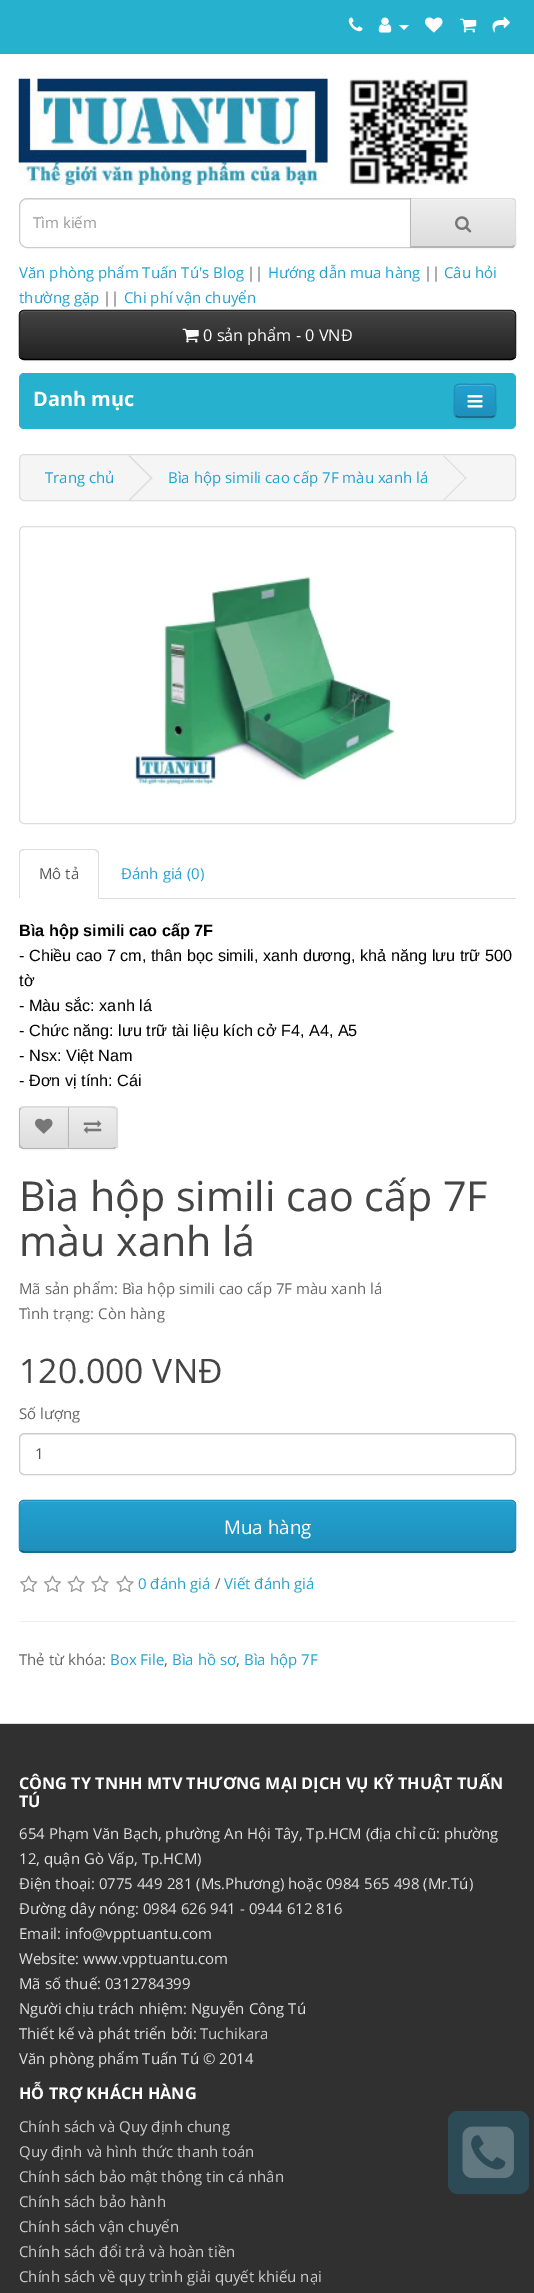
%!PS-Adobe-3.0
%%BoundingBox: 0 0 534 2293
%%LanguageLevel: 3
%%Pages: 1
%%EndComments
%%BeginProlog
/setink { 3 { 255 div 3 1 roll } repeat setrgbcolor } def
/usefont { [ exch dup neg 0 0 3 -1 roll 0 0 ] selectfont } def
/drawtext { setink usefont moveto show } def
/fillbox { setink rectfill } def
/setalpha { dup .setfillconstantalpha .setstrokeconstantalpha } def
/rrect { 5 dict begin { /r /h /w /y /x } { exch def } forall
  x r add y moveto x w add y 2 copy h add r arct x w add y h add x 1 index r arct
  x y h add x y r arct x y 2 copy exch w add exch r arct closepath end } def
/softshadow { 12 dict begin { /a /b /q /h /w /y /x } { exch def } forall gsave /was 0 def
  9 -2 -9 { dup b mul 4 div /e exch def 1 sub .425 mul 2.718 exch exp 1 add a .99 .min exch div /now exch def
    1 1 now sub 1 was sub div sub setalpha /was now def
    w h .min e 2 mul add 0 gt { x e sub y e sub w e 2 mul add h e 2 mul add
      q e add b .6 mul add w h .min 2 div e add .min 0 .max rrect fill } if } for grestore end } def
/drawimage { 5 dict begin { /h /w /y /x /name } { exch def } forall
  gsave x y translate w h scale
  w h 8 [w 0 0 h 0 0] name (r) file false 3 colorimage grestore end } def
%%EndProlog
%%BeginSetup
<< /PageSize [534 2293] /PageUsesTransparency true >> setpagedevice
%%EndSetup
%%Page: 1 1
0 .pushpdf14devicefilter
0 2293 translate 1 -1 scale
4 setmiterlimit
0 0 534 2293 255 255 255 fillbox
0 0 534 54 38 177 206 fillbox
(assets/img1.rgb) 348 17 15 15 drawimage
(assets/img2.rgb) 378 17 14 16 drawimage
255 255 255 setink
399 25 moveto 409 25 lineto 404 30 lineto closepath fill
(assets/img3.rgb) 425 17 18 16 drawimage
(assets/img4.rgb) 460 18 17 15 drawimage
(assets/img5.rgb) 492 16 18 17 drawimage
(assets/img6.rgb) 18 78 451 107 drawimage
236 236 236 setink
26 200 moveto 410 200 lineto 410 199 lineto 26 199 lineto 22 199 20 202 20 206 curveto 20 203 23 200 26 200 curveto closepath fill
204 204 204 setink
27 198.5 moveto 410.5 198.5 lineto 410.5 247.5 lineto 27 247.5 lineto 23 247.5 19.5 244 19.5 240 curveto 19.5 206 lineto 19.5 202 23 198.5 27 198.5 curveto closepath stroke
(Tìm kiếm) 33 228 /OpenSans-Regular 15 153 153 153 drawtext
0 0 0 setink
410 199 106 50 5 1 0.05 softshadow
gsave
410 198 moveto 511 198 lineto 514 198 516 200 516 203 curveto 516 243 lineto 516 246 514 248 511 248 curveto 410 248 lineto closepath clip newpath
gsave 411 199 moveto 516 199 lineto 516 246 lineto 411 246 lineto closepath clip newpath
<< /ShadingType 2 /ColorSpace /DeviceRGB /Coords [463 199 463 246] /Extend [true true] /Function << /FunctionType 2 /Domain [0 1] /C0 [0.933 0.933 0.933] /C1 [0.867 0.867 0.867] /N 1 >> >> shfill grestore
grestore
241 241 241 setink
411 200 moveto 511 200 lineto 513 200 515 202 515 204 curveto 515 203 lineto 515 201 513 199 511 199 curveto 411 199 lineto closepath fill
221 221 221 setink
515 199 moveto 514 198 512 198 511 198 curveto 410 198 lineto 412 199 lineto 511 199 lineto 514 200 lineto closepath fill
515 199 moveto 516 202 lineto 516 235 lineto 516 238 517 243 515 246 curveto 514 245 lineto 516 243 515 237 515 235 curveto 515 202 lineto 514 200 lineto closepath fill
179 179 179 setink
513 248 moveto 410 248 lineto 412 246 lineto 512 246 lineto 514 245 lineto 515 246 lineto closepath fill
183 183 183 setink
411 199 moveto 412 199 lineto 410 198 lineto 410 248 lineto 412 246 lineto 411 246 lineto closepath fill
(assets/img7.rgb) 455 216 17 17 drawimage
(Văn phòng phẩm Tuấn Tú's Blog) 19 278 /OpenSans-Regular 15 35 161 209 drawtext
(||) 247 278 /OpenSans-Regular 15 102 102 102 drawtext
(Hướng dẫn mua hàng) 268 278 /OpenSans-Regular 15 35 161 209 drawtext
(||) 424 278 /OpenSans-Regular 15 102 102 102 drawtext
(Câu hỏi) 444 278 /OpenSans-Regular 15 35 161 209 drawtext
(thường gặp) 19 303 /OpenSans-Regular 15 35 161 209 drawtext
(||) 103 303 /OpenSans-Regular 15 102 102 102 drawtext
(Chi phí vận chuyển) 124 303 /OpenSans-Regular 15 35 161 209 drawtext
0 0 0 setink
19 311 497 50 5 1 0.05 softshadow
54 54 54 setink
19 310 497 50 5 rrect fill
gsave
19 310 497 50 5 rrect clip newpath
gsave 19 311 moveto 516 311 lineto 516 359 lineto 19 359 lineto closepath clip newpath
<< /ShadingType 2 /ColorSpace /DeviceRGB /Coords [268 311 268 359] /Extend [true true] /Function << /FunctionType 2 /Domain [0 1] /C0 [0.267 0.267 0.267] /C1 [0.133 0.133 0.133] /N 1 >> >> shfill grestore
grestore
105 105 105 setink
24 312 moveto 511 312 lineto 513 312 515 314 515 316 curveto 515 313 514 311 511 311 curveto 24 311 lineto 21 311 20 313 20 316 curveto 20 314 22 312 24 312 curveto closepath fill
0 0 0 setink
1.2 setlinewidth
514.5 358 moveto 511 359.5 lineto 24 359.5 lineto 20.5 358 lineto stroke
34 34 34 setink
20.5 358 moveto 20 357.5 19.5 356 19.5 355 curveto 19.5 315 lineto 19.5 314 20 312.5 20.5 312 curveto 21.5 311 22.5 310.5 24 310.5 curveto 511 310.5 lineto 512.5 310.5 513.5 311 514.5 312 curveto 515 312.5 515.5 314 515.5 315 curveto 515.5 355 lineto 515.5 356 515 357.5 514.5 358 curveto stroke
(assets/img8.rgb) 182 328 17 15 drawimage
(0 sản phẩm - 0 VNĐ) 203 341 /OpenSans-Regular 16.25 255 255 255 drawtext
38 177 206 setink
19 373 497 56 5 rrect fill
(Danh mục) 33 406 /OpenSans-Bold 20 255 255 255 drawtext
0 0 0 setink
454 385 42 34 5 1 0.05 softshadow
34 154 200 setink
454 384 42 34 5 rrect fill
gsave
454 384 42 34 5 rrect clip newpath
gsave 454 385 moveto 496 385 lineto 496 416 lineto 454 416 lineto closepath clip newpath
<< /ShadingType 2 /ColorSpace /DeviceRGB /Coords [475 385 475 416] /Extend [true true] /Function << /FunctionType 2 /Domain [0 1] /C0 [0.137 0.631 0.82] /C1 [0.122 0.565 0.733] /N 1 >> >> shfill grestore
grestore
79 180 218 setink
459 386 moveto 491 386 lineto 493 386 495 388 495 390 curveto 495 384 490 385 486 385 curveto 464 385 lineto 460 385 455 384 455 390 curveto 455 388 457 386 459 386 curveto closepath fill
20 94 122 setink
494.5 415.5 moveto 493.5 416.5 492.5 417 491 417 curveto 459 417 lineto 457.5 417 456.5 416.5 455.5 415.5 curveto stroke
31 144 187 setink
455.5 415.5 moveto 453 413 454.5 404 454.5 400.5 curveto 454.5 380.5 453 384.5 475 384.5 curveto 497 384.5 495.5 380.5 495.5 400.5 curveto 495.5 404 497 413 494.5 415.5 curveto stroke
(assets/img9.rgb) 467 395 16 13 drawimage
245 245 245 setink
19.5 454.5 496 46 4.5 rrect gsave fill grestore
221 221 221 setink
1 setlinewidth
stroke
(Trang chủ) 45 483 /OpenSans-Regular 15 35 161 209 drawtext
221 221 221 setink
128.5 456 moveto 129.5 455 lineto 152.5 478 lineto 151.5 479 lineto closepath fill
128.5 500 moveto 151.5 477 lineto 152.5 478 lineto 129.5 501 lineto closepath fill
(Bìa hộp simili cao cấp 7F màu xanh lá) 168 483 /OpenSans-Regular 15 35 161 209 drawtext
221 221 221 setink
443 456 moveto 443.5 455 lineto 466.5 478 lineto 466 479 lineto closepath fill
443 500 moveto 466 477 lineto 466.5 478 lineto 443.5 501 lineto closepath fill
19.5 526.5 496 297 4.5 rrect stroke
(assets/img10.rgb) 134 576 262 211 drawimage
99 898 417 1 221 221 221 fillbox
24 849 moveto 22 849 21 850 20 850 curveto 21 851 lineto 24 850 lineto 94 850 lineto 96 851 lineto 97 850 lineto 94 849 lineto closepath fill
97 850 moveto 99 852 lineto 99 899 lineto 98 898 lineto 98 853 lineto 96 851 lineto closepath fill
20 850 moveto 20 851 19 852 19 854 curveto 19 898 lineto 20 898 lineto 20 854 lineto 20 853 20 852 21 851 curveto closepath fill
(Mô tả) 39 879 /OpenSans-Regular 15 85 85 85 drawtext
(Đánh giá \(0\)) 121 879 /OpenSans-Regular 15 35 161 209 drawtext
(Bìa hộp simili cao cấp 7F) 19 936 /LiberationSans-Bold 16.25 0 0 0 drawtext
(- Chiều cao 7 cm, thân bọc simili, xanh dương, khả năng lưu trữ 500) 19 961 /LiberationSans-Regular 16.25 0 0 0 drawtext
(tờ) 19 986 /LiberationSans-Regular 16.25 0 0 0 drawtext
(- Màu sắc: xanh lá) 19 1011 /LiberationSans-Regular 16.25 0 0 0 drawtext
(- Chức năng: lưu trữ tài liệu kích cở F4, A4, A5) 19 1036 /LiberationSans-Regular 16.25 0 0 0 drawtext
(- Nsx: Việt Nam) 19 1061 /LiberationSans-Regular 16.25 0 0 0 drawtext
(- Đơn vị tính: Cái) 19 1086 /LiberationSans-Regular 16.25 0 0 0 drawtext
19 1108 50 42 5 1 0.05 softshadow
gsave
24 1106 moveto 69 1106 lineto 69 1149 lineto 24 1149 lineto 21 1149 19 1147 19 1144 curveto 19 1111 lineto 19 1108 21 1106 24 1106 curveto closepath clip newpath
gsave 19 1108 moveto 68 1108 lineto 68 1148 lineto 19 1148 lineto closepath clip newpath
<< /ShadingType 2 /ColorSpace /DeviceRGB /Coords [44 1108 44 1148] /Extend [true true] /Function << /FunctionType 2 /Domain [0 1] /C0 [0.933 0.933 0.933] /C1 [0.867 0.867 0.867] /N 1 >> >> shfill grestore
grestore
241 241 241 setink
24 1109 moveto 68 1109 lineto 68 1108 lineto 24 1108 lineto 22 1108 20 1110 20 1112 curveto 20 1110 22 1109 24 1109 curveto closepath fill
221 221 221 setink
24 1108 moveto 21 1109 lineto 20 1108 lineto 22 1106 lineto 69 1106 lineto 67 1108 lineto closepath fill
69 1106 moveto 67 1108 lineto 68 1108 lineto 68 1148 lineto 69 1149 lineto closepath fill
179 179 179 setink
69 1149 moveto 22 1149 lineto 20 1147 lineto 21 1146 lineto 23 1148 lineto 68 1148 lineto closepath fill
183 183 183 setink
20 1147.5 moveto 19.5 1146.5 19 1145.5 19 1144 curveto 19 1111 lineto 19 1109.5 19.5 1108.5 20 1107.5 curveto 21 1109 lineto 20 1110.5 lineto 20 1144.5 lineto 21 1146.5 lineto closepath fill
(assets/img11.rgb) 35 1118 18 16 drawimage
0 0 0 setink
68 1108 50 42 5 1 0.05 softshadow
gsave
68 1106 moveto 113 1106 lineto 116 1106 118 1108 118 1111 curveto 118 1144 lineto 118 1147 116 1149 113 1149 curveto 68 1149 lineto closepath clip newpath
gsave 68 1108 moveto 118 1108 lineto 118 1148 lineto 68 1148 lineto closepath clip newpath
<< /ShadingType 2 /ColorSpace /DeviceRGB /Coords [93 1108 93 1148] /Extend [true true] /Function << /FunctionType 2 /Domain [0 1] /C0 [0.933 0.933 0.933] /C1 [0.867 0.867 0.867] /N 1 >> >> shfill grestore
grestore
241 241 241 setink
69 1109 moveto 112 1109 lineto 114 1109 115 1109 116 1110 curveto 115 1109 114 1108 112 1108 curveto 69 1108 lineto closepath fill
221 221 221 setink
68 1107 moveto 68 1106 lineto 114 1106 lineto 116 1107 lineto 115 1109 lineto 113 1107 75 1108 69 1108 curveto closepath fill
118 1146 moveto 116 1148 lineto 115 1147 lineto 117 1145 116 1113 116 1110 curveto 115 1109 lineto 116 1107 lineto 118 1109 lineto closepath fill
179 179 179 setink
68 1149 moveto 69 1147 lineto 69 1148 lineto 112 1148 lineto 114 1148 115 1147 115 1147 curveto 116 1148 lineto 114 1149 lineto closepath fill
183 183 183 setink
69 1108 moveto 69 1147 lineto 68 1148 lineto 68 1107 lineto closepath fill
(assets/img12.rgb) 83 1120 19 14 drawimage
(Bìa hộp simili cao cấp 7F) 19 1211 /OpenSans-Regular 41.25 68 68 68 drawtext
(màu xanh lá) 19 1256 /OpenSans-Regular 41.25 68 68 68 drawtext
(Mã sản phẩm: Bìa hộp simili cao cấp 7F màu xanh lá) 19 1294 /OpenSans-Regular 15 102 102 102 drawtext
(Tình trạng: Còn hàng) 19 1319 /OpenSans-Regular 15 102 102 102 drawtext
(120.000 VNĐ) 19 1383 /OpenSans-Regular 33.75 68 68 68 drawtext
(Số lượng) 19 1419 /OpenSans-Regular 15 102 102 102 drawtext
236 236 236 setink
24 1435 moveto 511 1435 lineto 513 1435 515 1437 515 1439 curveto 515 1436 514 1434 511 1434 curveto 24 1434 lineto 21 1434 20 1436 20 1439 curveto 20 1437 22 1435 24 1435 curveto closepath fill
204 204 204 setink
19.5 1433.5 496 41 4.5 rrect stroke
(1) 35 1459 /OpenSans-Regular 15 85 85 85 drawtext
0 0 0 setink
19 1501 497 53 5 1 0.05 softshadow
34 154 200 setink
19 1500 497 53 5 rrect fill
gsave
19 1500 497 53 5 rrect clip newpath
gsave 19 1501 moveto 516 1501 lineto 516 1551 lineto 19 1551 lineto closepath clip newpath
<< /ShadingType 2 /ColorSpace /DeviceRGB /Coords [268 1501 268 1551] /Extend [true true] /Function << /FunctionType 2 /Domain [0 1] /C0 [0.137 0.631 0.82] /C1 [0.122 0.565 0.733] /N 1 >> >> shfill grestore
grestore
79 180 218 setink
24 1502 moveto 511 1502 lineto 513 1502 515 1504 515 1506 curveto 515 1503 514 1501 511 1501 curveto 24 1501 lineto 21 1501 20 1503 20 1506 curveto 20 1504 22 1502 24 1502 curveto closepath fill
20 94 122 setink
1.2 setlinewidth
514.5 1550.5 moveto 511 1552 lineto 24 1552 lineto 20.5 1550.5 lineto stroke
31 144 187 setink
20.5 1550.5 moveto 20 1550 19.5 1548.5 19.5 1547.5 curveto 19.5 1505 lineto 19.5 1504 20 1502.5 20.5 1502 curveto 21.5 1501 22.5 1500.5 24 1500.5 curveto 511 1500.5 lineto 512.5 1500.5 513.5 1501 514.5 1502 curveto 515 1502.5 515.5 1504 515.5 1505 curveto 515.5 1547.5 lineto 515.5 1548.5 515 1550 514.5 1550.5 curveto stroke
(Mua hàng) 224 1534 /OpenSans-Regular 18.75 255 255 255 drawtext
(assets/img13.rgb) 20 1575 18 17 drawimage
(assets/img14.rgb) 43 1575 18 17 drawimage
(assets/img15.rgb) 67 1575 18 17 drawimage
(assets/img16.rgb) 91 1575 18 17 drawimage
(assets/img16.rgb) 116 1575 18 17 drawimage
(0 đánh giá) 138 1589 /OpenSans-Regular 15 35 161 209 drawtext
(/) 215 1589 /OpenSans-Regular 15 102 102 102 drawtext
(Viết đánh giá) 224 1589 /OpenSans-Regular 15 35 161 209 drawtext
19 1621 497 1 238 238 238 fillbox
(Thẻ từ khóa:) 19 1665 /OpenSans-Regular 15 102 102 102 drawtext
(Box File) 110 1665 /OpenSans-Regular 15 35 161 209 drawtext
(,) 164 1665 /OpenSans-Regular 15 102 102 102 drawtext
(Bìa hồ sơ) 172 1665 /OpenSans-Regular 15 35 161 209 drawtext
(,) 236 1665 /OpenSans-Regular 15 102 102 102 drawtext
(Bìa hộp 7F) 244 1665 /OpenSans-Regular 15 35 161 209 drawtext
0 1724 534 569 48 48 48 fillbox
0 1723 534 1 221 221 221 fillbox
(CÔNG TY TNHH MTV THƯƠNG MẠI DỊCH VỤ KỸ THUẬT TUẤN) 19 1789 /OpenSans-Bold 16.25 255 255 255 drawtext
(TÚ) 19 1807 /OpenSans-Bold 16.25 255 255 255 drawtext
(654 Phạm Văn Bạch, phường An Hội Tây, Tp.HCM \(địa chỉ cũ: phường) 19 1839 /OpenSans-Regular 15 226 226 226 drawtext
(12, quận Gò Vấp, Tp.HCM\)) 19 1864 /OpenSans-Regular 15 226 226 226 drawtext
(Điện thoại: 0775 449 281 \(Ms.Phương\) hoặc 0984 565 498 \(Mr.Tú\)) 19 1889 /OpenSans-Regular 15 226 226 226 drawtext
(Đường dây nóng: 0984 626 941 - 0944 612 816) 19 1914 /OpenSans-Regular 15 226 226 226 drawtext
(Email: info@vpptuantu.com) 19 1939 /OpenSans-Regular 15 226 226 226 drawtext
(Website: www.vpptuantu.com) 19 1964 /OpenSans-Regular 15 226 226 226 drawtext
(Mã số thuế: 0312784399) 19 1989 /OpenSans-Regular 15 226 226 226 drawtext
(Người chịu trách nhiệm: Nguyễn Công Tú) 19 2014 /OpenSans-Regular 15 226 226 226 drawtext
(Thiết kế và phát triển bởi:) 19 2039 /OpenSans-Regular 15 226 226 226 drawtext
(Tuchikara) 200 2039 /OpenSans-Regular 15 204 204 204 drawtext
(Văn phòng phẩm Tuấn Tú © 2014) 19 2064 /OpenSans-Regular 15 226 226 226 drawtext
(HỖ TRỢ KHÁCH HÀNG) 19 2099 /OpenSans-Bold 16.25 255 255 255 drawtext
(Chính sách và Quy định chung) 19 2132 /OpenSans-Regular 15 204 204 204 drawtext
(Quy định và hình thức thanh toán) 19 2157 /OpenSans-Regular 15 204 204 204 drawtext
(Chính sách bảo mật thông tin cá nhân) 19 2182 /OpenSans-Regular 15 204 204 204 drawtext
(Chính sách bảo hành) 19 2207 /OpenSans-Regular 15 204 204 204 drawtext
(Chính sách vận chuyển) 19 2232 /OpenSans-Regular 15 204 204 204 drawtext
(Chính sách đổi trả và hoàn tiền) 19 2257 /OpenSans-Regular 15 204 204 204 drawtext
(Chính sách về quy trình giải quyết khiếu nại) 19 2282 /OpenSans-Regular 15 204 204 204 drawtext
45 75 86 setink
448 2111 81 83 10 rrect fill
(assets/img17.rgb) 462 2126 52 52 drawimage
.poppdf14devicefilter showpage
%%EOF
